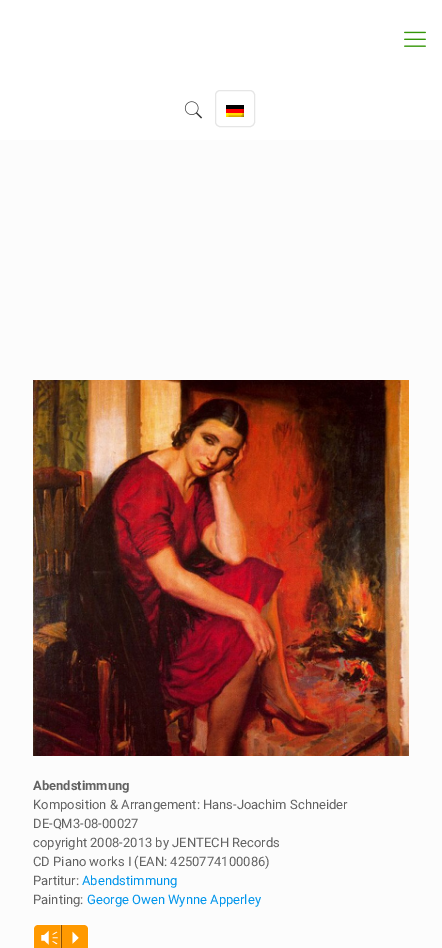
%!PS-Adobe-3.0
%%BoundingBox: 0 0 442 948
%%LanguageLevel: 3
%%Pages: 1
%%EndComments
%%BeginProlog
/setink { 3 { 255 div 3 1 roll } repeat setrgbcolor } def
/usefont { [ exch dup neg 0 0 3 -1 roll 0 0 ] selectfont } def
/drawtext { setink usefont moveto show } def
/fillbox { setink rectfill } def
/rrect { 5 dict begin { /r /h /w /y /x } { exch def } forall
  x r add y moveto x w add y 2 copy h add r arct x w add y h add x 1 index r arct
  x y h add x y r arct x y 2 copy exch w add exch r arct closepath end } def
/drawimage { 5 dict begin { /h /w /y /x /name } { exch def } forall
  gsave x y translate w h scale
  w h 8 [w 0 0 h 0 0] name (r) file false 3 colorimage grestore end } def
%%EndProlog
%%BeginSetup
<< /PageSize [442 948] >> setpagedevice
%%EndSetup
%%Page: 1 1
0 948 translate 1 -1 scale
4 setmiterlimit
0 0 442 948 252 252 252 fillbox
0 0 442 140 255 255 255 fillbox
(assets/img1.rgb) 404 31 22 16 drawimage
(assets/img2.rgb) 184 101 19 18 drawimage
230 230 230 setink
215.5 90.5 39 36 4.5 rrect stroke
(assets/img3.rgb) 226 105 18 12 drawimage
(assets/img4.rgb) 33 380 376 376 drawimage
(Abendstimmung) 33 790 /Roboto-Bold 13 98 98 98 drawtext
(Komposition & Arrangement: Hans-Joachim Schneider) 33 809 /Roboto-Regular 13 98 98 98 drawtext
(DE-QM3-08-00027) 33 828 /Roboto-Regular 13 98 98 98 drawtext
(copyright 2008-2013 by JENTECH Records) 33 847 /Roboto-Regular 13 98 98 98 drawtext
(CD Piano works I \(EAN: 4250774100086\)) 33 866 /Roboto-Regular 13 98 98 98 drawtext
(Partitur:) 33 885 /Roboto-Regular 13 98 98 98 drawtext
(Abendstimmung) 82 885 /Roboto-Regular 13 0 149 235 drawtext
(Painting:) 33 904 /Roboto-Regular 13 98 98 98 drawtext
(George Owen Wynne Apperley) 87 904 /Roboto-Regular 13 0 149 235 drawtext
255 255 255 setink
33 924 56 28 5 rrect fill
255 153 0 setink
38 925 moveto 61 925 lineto 61 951 lineto 38 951 lineto 36 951 34 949 34 947 curveto 34 929 lineto 34 927 36 925 38 925 curveto closepath fill
60 925 1 23 254 168 39 fillbox
(Vm) 40 944 /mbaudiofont-Regular 20 255 255 255 drawtext
255 153 0 setink
61 925 moveto 84 925 lineto 86 925 88 927 88 929 curveto 88 947 lineto 88 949 86 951 84 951 curveto 61 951 lineto closepath fill
61 925 1 23 140 80 2 fillbox
(P) 65 944 /mbaudiofont-Regular 20 255 255 255 drawtext
showpage
%%EOF
